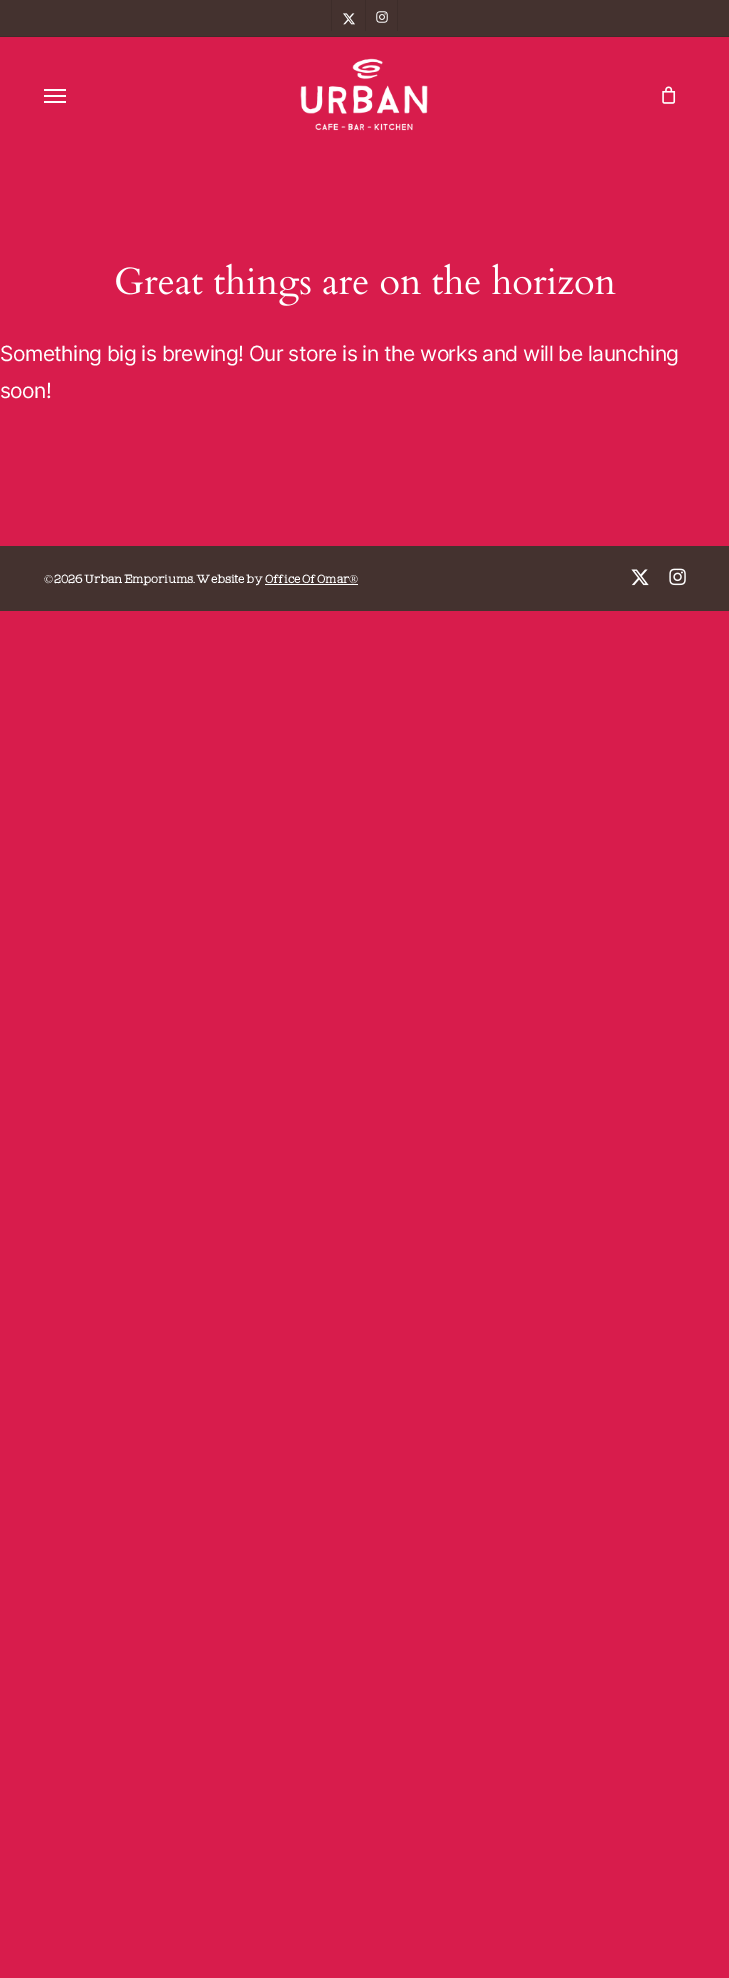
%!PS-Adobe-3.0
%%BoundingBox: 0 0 729 1978
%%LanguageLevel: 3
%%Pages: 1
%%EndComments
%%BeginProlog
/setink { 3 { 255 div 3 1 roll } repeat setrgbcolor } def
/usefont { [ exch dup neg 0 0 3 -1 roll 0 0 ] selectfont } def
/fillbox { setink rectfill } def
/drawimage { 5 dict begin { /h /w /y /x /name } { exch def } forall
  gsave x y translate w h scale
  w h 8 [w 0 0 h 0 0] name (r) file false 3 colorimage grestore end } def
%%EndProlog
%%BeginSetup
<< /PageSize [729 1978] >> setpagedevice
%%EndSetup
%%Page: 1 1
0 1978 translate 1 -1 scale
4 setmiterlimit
0 0 729 1978 216 28 76 fillbox
0 0 729 36 68 50 47 fillbox
0 36 729 1 61 45 42 fillbox
331 0 1 31 61 45 42 fillbox
(assets/img1.rgb) 343 13 12 12 drawimage
397 0 1 31 61 45 42 fillbox
365 0 1 31 61 45 42 fillbox
(assets/img2.rgb) 376 11 12 12 drawimage
(assets/img3.rgb) 300 58 128 73 drawimage
44 89 22 2 255 255 255 fillbox
44 101 22 2 255 255 255 fillbox
44 95 22 2 255 255 255 fillbox
(assets/img4.rgb) 662 86 14 18 drawimage
(assets/img5.rgb) 116 263 500 43 drawimage
/Inter-Regular 21 usefont
0 361 moveto -0.55 0 (Something big is brewing! Our store is in the works and will be launching) ashow
0 398 moveto -0.55 0 (soon!) ashow
0 546 729 65 68 50 47 fillbox
/LiberationSerif-Regular 12 usefont
255 255 255 setink
44 583 moveto -0.55 0 (©) ashow
/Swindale-Regular 12 usefont
54 583 moveto -0.55 0 (2026 Urban Emporiums. Website by Office Of Omar) ashow
/LiberationSerif-Regular 12 usefont
349 583 moveto -0.55 0 (®) ashow
265 584 93 1 255 255 255 fillbox
(assets/img6.rgb) 631 569 18 17 drawimage
(assets/img7.rgb) 669 568 17 18 drawimage
showpage
%%EOF
